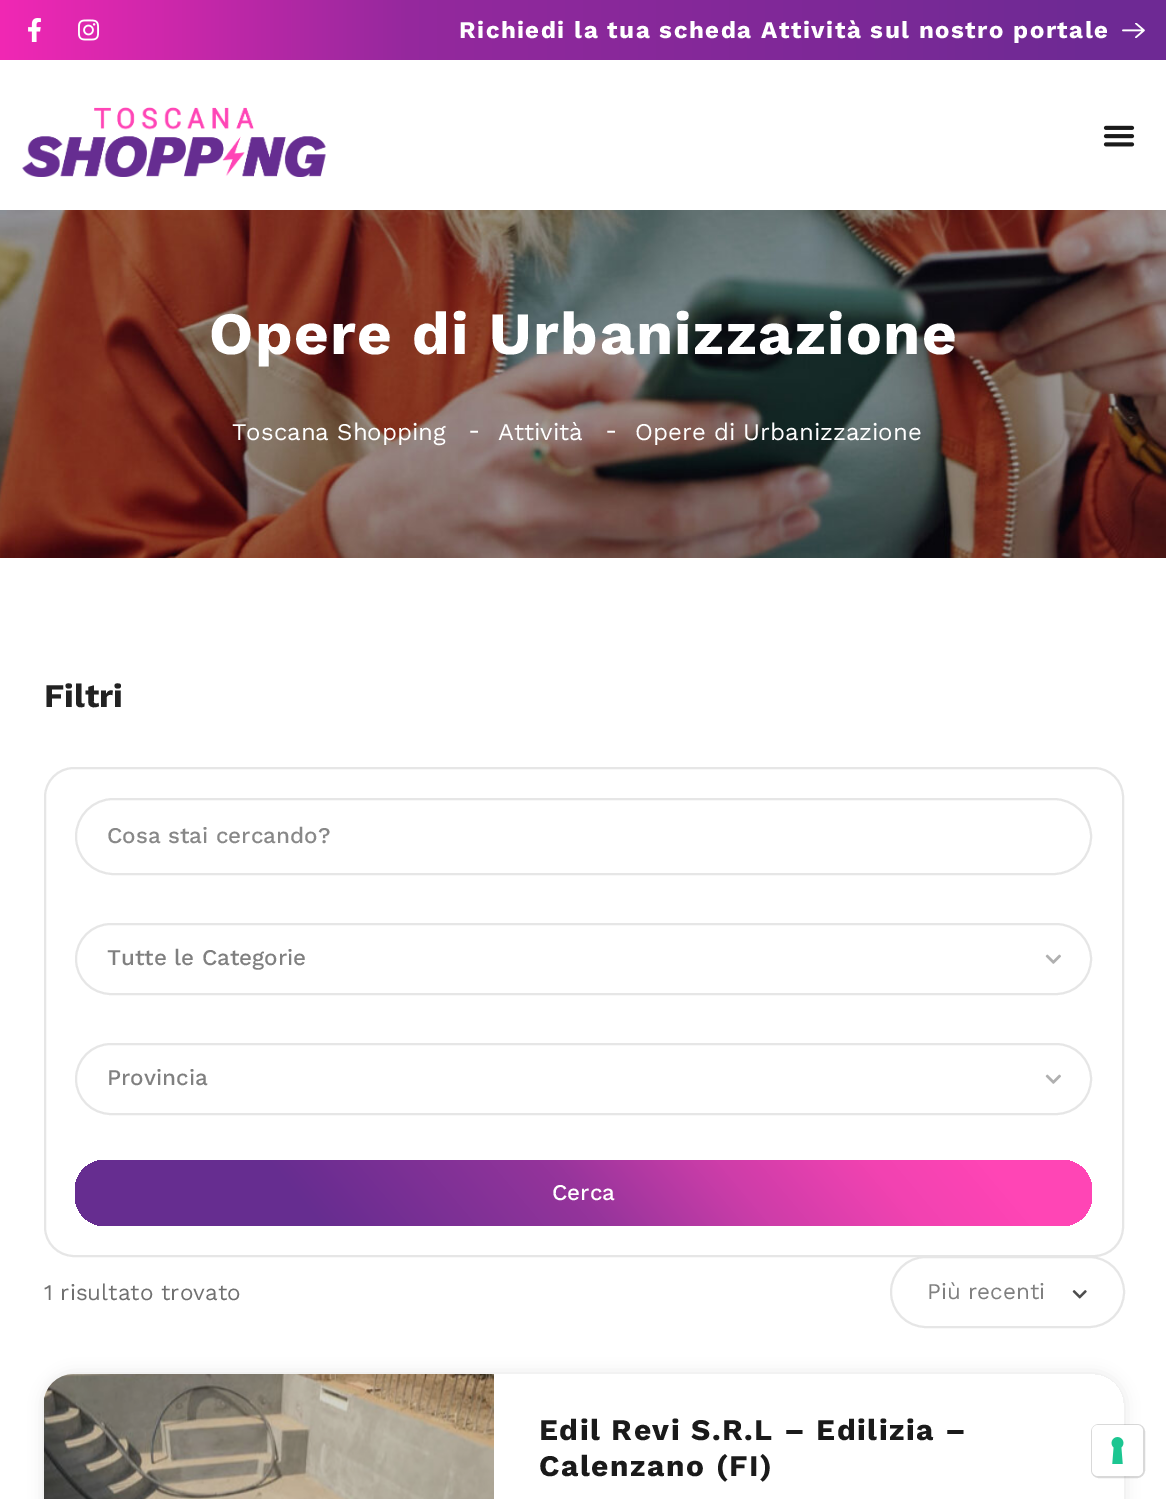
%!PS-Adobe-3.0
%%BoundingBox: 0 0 1166 1499
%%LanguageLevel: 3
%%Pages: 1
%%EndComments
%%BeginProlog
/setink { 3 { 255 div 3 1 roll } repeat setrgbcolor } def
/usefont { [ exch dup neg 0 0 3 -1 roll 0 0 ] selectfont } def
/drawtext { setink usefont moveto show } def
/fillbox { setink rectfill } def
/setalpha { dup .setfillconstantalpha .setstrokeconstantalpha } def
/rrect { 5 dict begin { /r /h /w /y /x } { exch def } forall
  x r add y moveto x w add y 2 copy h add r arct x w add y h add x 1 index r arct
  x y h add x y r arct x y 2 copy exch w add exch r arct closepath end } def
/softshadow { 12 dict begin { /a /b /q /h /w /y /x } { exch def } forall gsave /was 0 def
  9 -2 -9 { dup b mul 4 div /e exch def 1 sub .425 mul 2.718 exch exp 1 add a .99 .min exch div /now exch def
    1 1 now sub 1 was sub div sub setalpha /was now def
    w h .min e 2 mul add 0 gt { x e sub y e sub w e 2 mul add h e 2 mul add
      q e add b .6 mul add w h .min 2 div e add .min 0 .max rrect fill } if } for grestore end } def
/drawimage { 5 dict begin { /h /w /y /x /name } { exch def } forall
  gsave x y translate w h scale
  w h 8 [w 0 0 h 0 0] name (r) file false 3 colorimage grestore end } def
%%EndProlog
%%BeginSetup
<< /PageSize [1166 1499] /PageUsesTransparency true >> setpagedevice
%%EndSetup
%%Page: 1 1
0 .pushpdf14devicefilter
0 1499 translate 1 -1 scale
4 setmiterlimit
0 0 1166 1499 255 255 255 fillbox
gsave 0 0 moveto 1166 0 lineto 1166 60 lineto 0 60 lineto closepath clip newpath
<< /ShadingType 2 /ColorSpace /DeviceRGB /Coords [0 30 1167 30] /Extend [true true] /Function << /FunctionType 3 /Domain [0 1] /Functions [<< /FunctionType 2 /Domain [0 1] /C0 [0.945 0.153 0.706] /C1 [0.808 0.153 0.671] /N 1 >> << /FunctionType 2 /Domain [0 1] /C0 [0.808 0.153 0.671] /C1 [0.584 0.157 0.616] /N 1 >> << /FunctionType 2 /Domain [0 1] /C0 [0.584 0.157 0.616] /C1 [0.431 0.161 0.58] /N 1 >> << /FunctionType 2 /Domain [0 1] /C0 [0.431 0.161 0.58] /C1 [0.431 0.161 0.58] /N 1 >>] /Bounds [0.14 0.35 0.94] /Encode [0 1 0 1 0 1 0 1] >> >> shfill grestore
(assets/img1.rgb) 28 18 13 24 drawimage
(assets/img2.rgb) 78 19 22 22 drawimage
/WorkSans-Bold 24 usefont
459 38 moveto 1.5 0 (Richiedi la tua scheda Attività sul nostro portale) ashow
(assets/img3.rgb) 1122 23 23 15 drawimage
(assets/img4.rgb) 22 107 304 70 drawimage
(assets/img5.rgb) 1103 125 32 22 drawimage
(assets/img6.rgb) 0 210 1166 348 drawimage
/WorkSans-Bold 60 usefont
209 354 moveto 1.5 0 (Opere di Urbanizzazione) ashow
(Toscana Shopping) 232 440 /WorkSans-Regular 24 255 255 255 drawtext
(-) 468 438 /WorkSans-Regular 24 255 255 255 drawtext
(Attività) 498 440 /WorkSans-Regular 24 255 255 255 drawtext
(-) 605 438 /WorkSans-Regular 24 255 255 255 drawtext
(Opere di Urbanizzazione) 635 440 /WorkSans-Regular 24 255 255 255 drawtext
(Filtri) 44 707 /WorkSans-Bold 33 34 34 34 drawtext
230 230 230 setink
2 setlinewidth
45 768 1078 488 29 rrect stroke
76 799 1015 75 37.5 rrect stroke
(Cosa stai cercando?) 107 843 /WorkSans-Medium 22.5 136 136 136 drawtext
230 230 230 setink
76 924 1015 70 35 rrect stroke
(Tutte le Categorie) 107 965 /WorkSans-Medium 22.5 128 128 128 drawtext
(assets/img7.rgb) 1045 954 16 10 drawimage
230 230 230 setink
76 1044 1015 70 35 rrect stroke
(Provincia) 107 1085 /WorkSans-Medium 22.5 128 128 128 drawtext
(assets/img7.rgb) 1045 1074 16 10 drawimage
gsave 75 1160 1017 66 30 rrect clip newpath
<< /ShadingType 2 /ColorSpace /DeviceRGB /Coords [269 1457 898 928] /Extend [true true] /Function << /FunctionType 3 /Domain [0 1] /Functions [<< /FunctionType 2 /Domain [0 1] /C0 [0.4 0.176 0.565] /C1 [0.4 0.176 0.565] /N 1 >> << /FunctionType 2 /Domain [0 1] /C0 [0.4 0.176 0.565] /C1 [0.584 0.204 0.608] /N 1 >> << /FunctionType 2 /Domain [0 1] /C0 [0.584 0.204 0.608] /C1 [0.808 0.239 0.663] /N 1 >> << /FunctionType 2 /Domain [0 1] /C0 [0.808 0.239 0.663] /C1 [0.945 0.259 0.694] /N 1 >> << /FunctionType 2 /Domain [0 1] /C0 [0.945 0.259 0.694] /C1 [1 0.271 0.71] /N 1 >> << /FunctionType 2 /Domain [0 1] /C0 [1 0.271 0.71] /C1 [1 0.271 0.71] /N 1 >>] /Bounds [0.23 0.49 0.65 0.79 0.9] /Encode [0 1 0 1 0 1 0 1 0 1 0 1] >> >> shfill grestore
(Cerca) 552 1200 /WorkSans-Medium 22.5 255 255 255 drawtext
(1 risultato trovato) 44 1300 /WorkSans-Regular 22.5 112 112 112 drawtext
255 255 255 setink
891 1257 233 70 35 rrect gsave fill grestore
230 230 230 setink
stroke
(Più recenti) 927 1299 /WorkSans-Regular 22.5 128 128 128 drawtext
(assets/img8.rgb) 1072 1290 15 9 drawimage
gsave
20 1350 moveto 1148 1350 lineto 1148 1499 lineto 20 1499 lineto closepath 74 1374 moveto 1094 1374 lineto 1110.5 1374 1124 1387.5 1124 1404 curveto 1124 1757 lineto 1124 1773.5 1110.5 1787 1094 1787 curveto 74 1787 lineto 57.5 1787 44 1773.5 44 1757 curveto 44 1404 lineto 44 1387.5 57.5 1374 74 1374 curveto closepath eoclip newpath
0 0 0 setink
44 1374 1080 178 30 7.5 0.1 softshadow
grestore
(assets/img9.rgb) 44 1374 450 125 drawimage
0.2 setalpha
39 39 41 setink
74 1374 moveto 494 1374 lineto 494 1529 lineto 74 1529 lineto 57.5 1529 44 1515.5 44 1499 curveto 44 1404 lineto 44 1387.5 57.5 1374 74 1374 curveto closepath fill
/WorkSans-Bold 30 usefont
1 setalpha
26 26 26 setink
539 1440 moveto 1.5 0 (Edil Revi S.R.L – Edilizia –) ashow
539 1476 moveto 1.5 0 (Calenzano \(FI\)) ashow
0.15 setalpha
0 0 0 setink
1092 1425 52 52 7 rrect stroke
1 setalpha
255 255 255 setink
1092 1425 51 51 6 rrect fill
(assets/img10.rgb) 1111 1437 13 27 drawimage
.poppdf14devicefilter showpage
%%EOF
